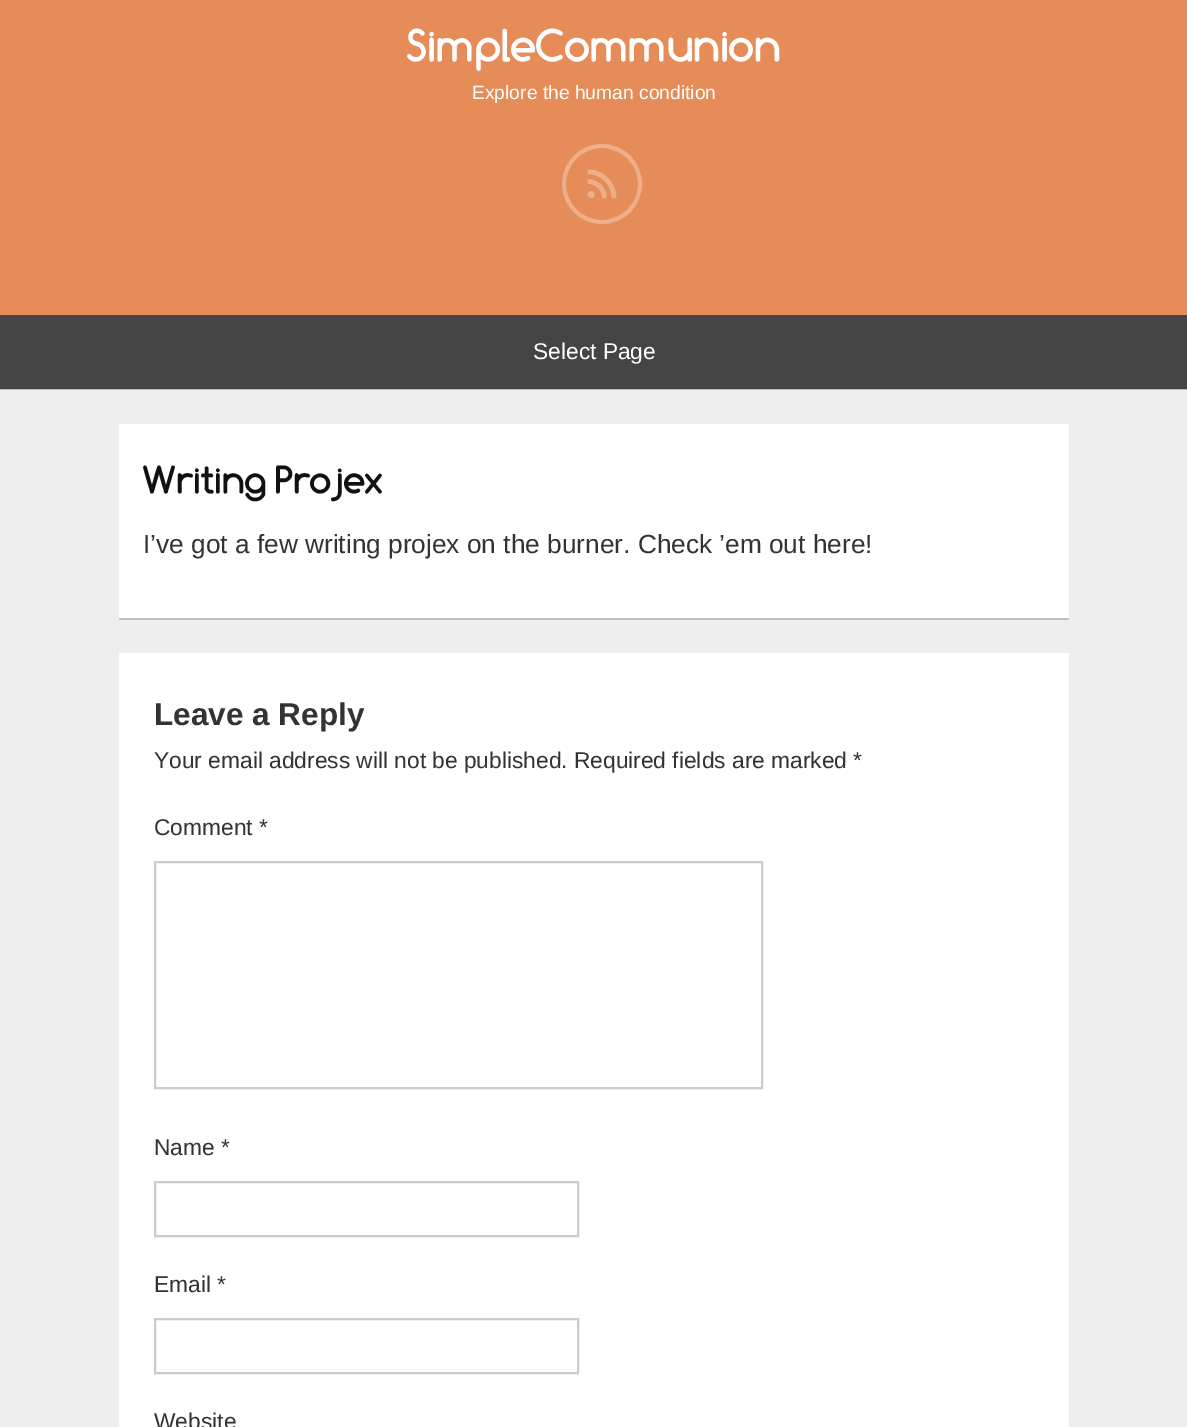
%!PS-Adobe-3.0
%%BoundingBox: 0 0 1187 1427
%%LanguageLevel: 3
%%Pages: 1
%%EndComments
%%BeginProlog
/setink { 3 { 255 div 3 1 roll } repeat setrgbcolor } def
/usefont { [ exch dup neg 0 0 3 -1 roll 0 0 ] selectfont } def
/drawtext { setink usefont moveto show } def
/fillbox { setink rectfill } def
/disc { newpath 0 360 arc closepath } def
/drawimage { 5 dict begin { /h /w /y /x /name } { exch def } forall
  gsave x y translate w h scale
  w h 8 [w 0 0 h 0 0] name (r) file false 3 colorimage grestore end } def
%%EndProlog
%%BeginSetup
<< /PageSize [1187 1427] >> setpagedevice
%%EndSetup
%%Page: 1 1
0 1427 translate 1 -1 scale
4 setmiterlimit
0 0 1187 1427 238 238 238 fillbox
0 0 1187 315 229 140 89 fillbox
(SimpleCommunion) 407 61 /Comfortaa-Bold 45.5 255 255 255 drawtext
(Explore the human condition) 472 99 /LiberationSans-Regular 19.25 255 255 255 drawtext
237 175 139 setink
4 setlinewidth
602 184 38 disc stroke
(assets/img1.rgb) 587 169 30 30 drawimage
0 389 1187 1 190 190 190 fillbox
0 315 1187 74 68 68 68 fillbox
(Select Page) 533 359 /LiberationSans-Regular 22.75 255 255 255 drawtext
119 618 950 2 190 190 190 fillbox
119 424 950 194 255 255 255 fillbox
(Writing Projex) 143 493 /Comfortaa-Bold 38.5 17 17 17 drawtext
(I’ve got a few writing projex on the burner. Check ’em out here!) 143 553 /LiberationSans-Regular 26.25 51 51 51 drawtext
119 653 950 774 255 255 255 fillbox
(Leave a Reply) 154 725 /LiberationSans-Bold 31.5 51 51 51 drawtext
(Your email address will not be published. Required fields are marked *) 154 768 /LiberationSans-Regular 22.75 51 51 51 drawtext
(Comment *) 154 835 /LiberationSans-Regular 22.75 51 51 51 drawtext
204 204 204 setink
2 setlinewidth
155 862 607 226 rectstroke
(Name *) 154 1155 /LiberationSans-Regular 22.75 51 51 51 drawtext
204 204 204 setink
155 1182 423 54 rectstroke
(Email *) 154 1292 /LiberationSans-Regular 22.75 51 51 51 drawtext
204 204 204 setink
155 1319 423 54 rectstroke
(Website) 154 1429 /LiberationSans-Regular 22.75 51 51 51 drawtext
showpage
%%EOF
